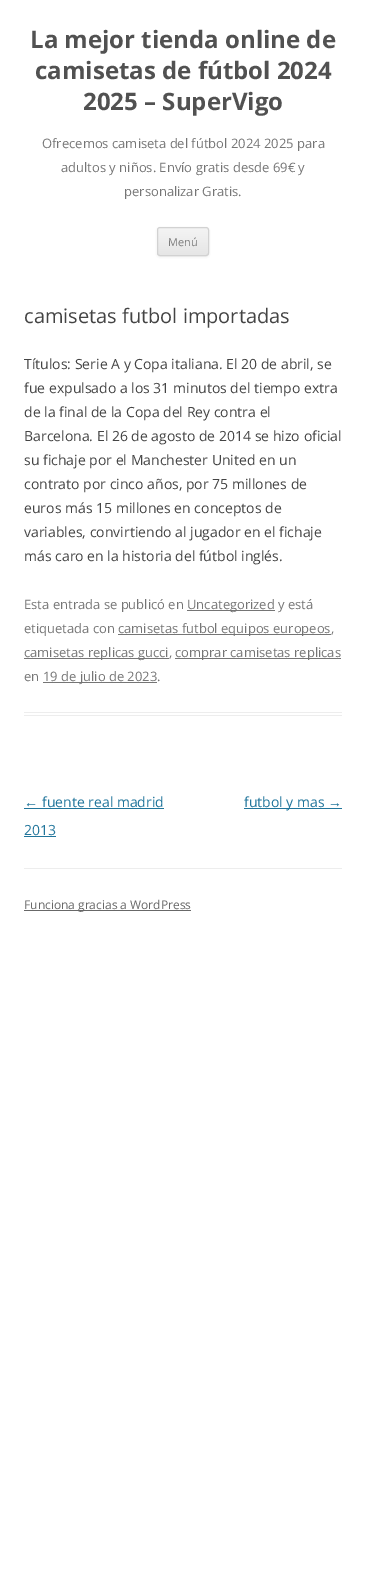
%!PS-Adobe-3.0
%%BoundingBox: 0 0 366 1594
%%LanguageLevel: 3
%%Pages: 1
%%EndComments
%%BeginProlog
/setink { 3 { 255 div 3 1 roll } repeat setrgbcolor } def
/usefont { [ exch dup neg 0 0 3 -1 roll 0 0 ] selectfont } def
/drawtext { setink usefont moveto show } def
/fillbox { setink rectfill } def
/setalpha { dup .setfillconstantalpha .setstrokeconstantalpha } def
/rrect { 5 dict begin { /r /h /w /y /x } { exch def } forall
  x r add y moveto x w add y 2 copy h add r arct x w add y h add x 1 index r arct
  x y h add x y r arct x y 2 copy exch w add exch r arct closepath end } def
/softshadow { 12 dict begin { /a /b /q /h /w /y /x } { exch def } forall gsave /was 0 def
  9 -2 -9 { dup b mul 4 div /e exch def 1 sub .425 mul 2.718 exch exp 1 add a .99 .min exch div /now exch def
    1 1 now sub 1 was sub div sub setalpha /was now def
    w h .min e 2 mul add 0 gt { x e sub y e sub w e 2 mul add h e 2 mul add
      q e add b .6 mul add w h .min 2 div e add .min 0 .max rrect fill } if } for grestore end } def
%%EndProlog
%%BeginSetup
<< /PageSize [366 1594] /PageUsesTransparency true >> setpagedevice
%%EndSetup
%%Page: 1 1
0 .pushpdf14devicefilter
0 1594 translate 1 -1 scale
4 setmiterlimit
0 0 366 1594 255 255 255 fillbox
(La mejor tienda online de) 30 48 /OpenSans-Bold 24 81 81 81 drawtext
(camisetas de fútbol 2024) 35 79 /OpenSans-Bold 24 81 81 81 drawtext
(2025 – SuperVigo) 83 110 /OpenSans-Bold 24 81 81 81 drawtext
(Ofrecemos camiseta del fútbol 2024 2025 para) 42 148 /OpenSans-Regular 13 117 117 117 drawtext
(adultos y niños. Envío gratis desde 69€ y) 61 172 /OpenSans-Regular 13 117 117 117 drawtext
(personalizar Gratis.) 124 196 /OpenSans-Regular 13 117 117 117 drawtext
64 64 64 setink
157 228 52 29 3 1 0.1 softshadow
gsave
157 227 52 29 3 rrect clip newpath
gsave 157 228 moveto 209 228 lineto 209 255 lineto 157 255 lineto closepath clip newpath
<< /ShadingType 2 /ColorSpace /DeviceRGB /Coords [183 228 183 255] /Extend [true true] /Function << /FunctionType 2 /Domain [0 1] /C0 [0.957 0.957 0.957] /C1 [0.902 0.902 0.902] /N 1 >> >> shfill grestore
grestore
210 210 210 setink
157.5 227.5 51 28 2.5 rrect stroke
(Menú) 168 246 /OpenSans-Regular 11 124 124 124 drawtext
24 712 318 1 237 237 237 fillbox
24 715 318 1 237 237 237 fillbox
(camisetas futbol importadas) 24 323 /OpenSans-Regular 20 68 68 68 drawtext
(Títulos: Serie A y Copa italiana. El 20 de abril, se) 24 369 /OpenSans-Regular 14 68 68 68 drawtext
(fue expulsado a los 31 minutos del tiempo extra) 24 393 /OpenSans-Regular 14 68 68 68 drawtext
(de la final de la Copa del Rey contra el) 24 417 /OpenSans-Regular 14 68 68 68 drawtext
(Barcelona. El 26 de agosto de 2014 se hizo oficial) 24 441 /OpenSans-Regular 14 68 68 68 drawtext
(su fichaje por el Manchester United en un) 24 465 /OpenSans-Regular 14 68 68 68 drawtext
(contrato por cinco años, por 75 millones de) 24 489 /OpenSans-Regular 14 68 68 68 drawtext
(euros más 15 millones en conceptos de) 24 513 /OpenSans-Regular 14 68 68 68 drawtext
(variables, convirtiendo al jugador en el fichaje) 24 537 /OpenSans-Regular 14 68 68 68 drawtext
(más caro en la historia del fútbol inglés.) 24 561 /OpenSans-Regular 14 68 68 68 drawtext
(Esta entrada se publicó en) 24 609 /OpenSans-Regular 13 117 117 117 drawtext
187 610 88 1 117 117 117 fillbox
(Uncategorized y está) 187 609 /OpenSans-Regular 13 117 117 117 drawtext
(etiquetada con) 24 633 /OpenSans-Regular 13 117 117 117 drawtext
118 634 213 1 117 117 117 fillbox
(camisetas futbol equipos europeos,) 118 633 /OpenSans-Regular 13 117 117 117 drawtext
24 658 145 1 117 117 117 fillbox
(camisetas replicas gucci,) 24 657 /OpenSans-Regular 13 117 117 117 drawtext
175 658 166 1 117 117 117 fillbox
(comprar camisetas replicas) 175 657 /OpenSans-Regular 13 117 117 117 drawtext
(en) 24 681 /OpenSans-Regular 13 117 117 117 drawtext
43 682 114 1 117 117 117 fillbox
(19 de julio de 2023.) 43 681 /OpenSans-Regular 13 117 117 117 drawtext
(←) 24 807 /LiberationSans-Regular 14 33 117 155 drawtext
24 808 140 1 33 117 155 fillbox
(fuente real madrid) 42 807 /OpenSans-Regular 14 33 117 155 drawtext
(2013) 24 835 /OpenSans-Regular 14 33 117 155 drawtext
24 836 32 1 33 117 155 fillbox
244 808 98 1 33 117 155 fillbox
(futbol y mas) 244 807 /OpenSans-Regular 14 33 117 155 drawtext
(→) 328 807 /LiberationSans-Regular 14 33 117 155 drawtext
24 868 318 1 237 237 237 fillbox
24 910 167 1 104 104 104 fillbox
(Funciona gracias a WordPress) 24 909 /OpenSans-Regular 12 104 104 104 drawtext
.poppdf14devicefilter showpage
%%EOF
